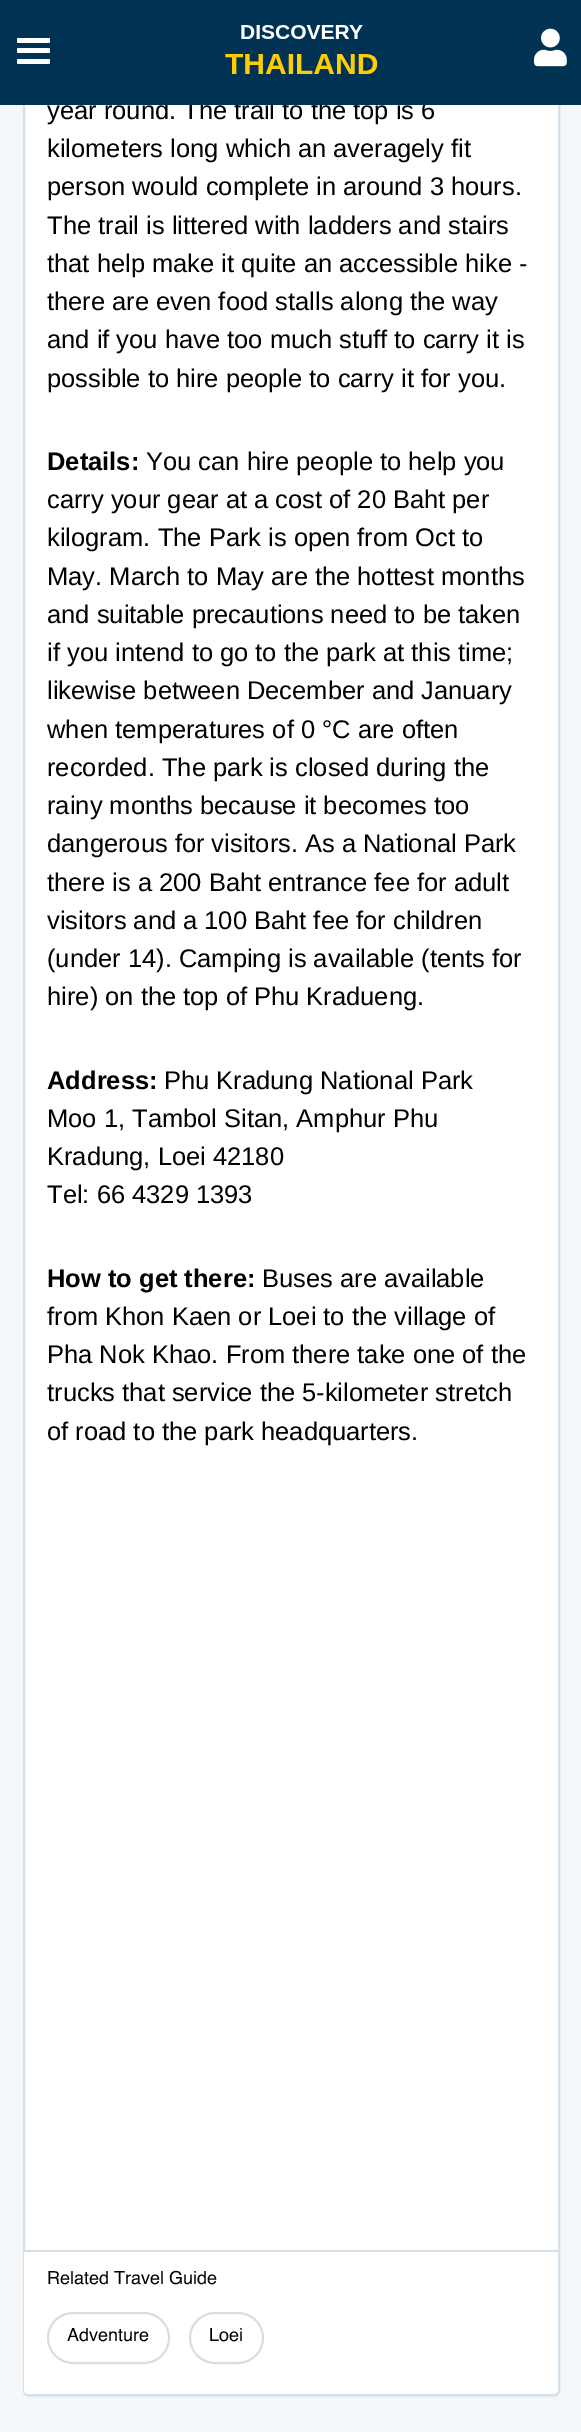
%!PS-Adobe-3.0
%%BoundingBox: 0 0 581 2432
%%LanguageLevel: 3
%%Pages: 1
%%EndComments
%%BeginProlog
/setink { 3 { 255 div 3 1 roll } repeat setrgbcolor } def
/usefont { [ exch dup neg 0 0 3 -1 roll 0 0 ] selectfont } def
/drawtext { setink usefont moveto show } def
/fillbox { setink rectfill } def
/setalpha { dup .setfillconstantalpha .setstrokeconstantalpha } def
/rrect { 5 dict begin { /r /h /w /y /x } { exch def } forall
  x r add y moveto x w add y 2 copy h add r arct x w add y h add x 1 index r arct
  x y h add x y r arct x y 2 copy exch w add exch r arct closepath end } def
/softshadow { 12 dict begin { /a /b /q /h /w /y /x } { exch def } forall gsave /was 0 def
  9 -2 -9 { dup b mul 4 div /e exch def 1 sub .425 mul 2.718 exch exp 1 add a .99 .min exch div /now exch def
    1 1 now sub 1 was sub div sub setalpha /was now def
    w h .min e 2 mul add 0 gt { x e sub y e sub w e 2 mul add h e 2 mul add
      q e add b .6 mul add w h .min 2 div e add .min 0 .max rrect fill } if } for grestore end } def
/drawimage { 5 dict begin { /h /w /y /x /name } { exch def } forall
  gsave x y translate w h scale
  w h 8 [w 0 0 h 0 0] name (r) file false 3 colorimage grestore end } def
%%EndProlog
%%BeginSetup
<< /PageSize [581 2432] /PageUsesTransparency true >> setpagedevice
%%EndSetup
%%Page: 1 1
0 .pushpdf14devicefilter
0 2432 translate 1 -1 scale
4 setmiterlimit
0 0 581 2432 245 248 250 fillbox
0 0 0 setink
23 -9 537 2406 6 1 0.05 softshadow
255 255 255 setink
24 -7 535 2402 5 rrect gsave fill grestore
211 224 233 setink
2 setlinewidth
stroke
(year round. The trail to the top is 6) 47 119 /LiberationSans-Regular 25.5 0 0 0 drawtext
0 0 581 105 0 50 83 fillbox
255 255 255 setink
17 38 33 5 1.5 rrect fill
17 48 33 5 1.5 rrect fill
17 59 33 5 1.5 rrect fill
(assets/img1.rgb) 225 25 153 49 drawimage
(assets/img2.rgb) 534 28 33 39 drawimage
(kilometers long which an averagely fit) 47 157 /LiberationSans-Regular 25.5 0 0 0 drawtext
(person would complete in around 3 hours.) 47 195 /LiberationSans-Regular 25.5 0 0 0 drawtext
(The trail is littered with ladders and stairs) 47 234 /LiberationSans-Regular 25.5 0 0 0 drawtext
(that help make it quite an accessible hike -) 47 272 /LiberationSans-Regular 25.5 0 0 0 drawtext
(there are even food stalls along the way) 47 310 /LiberationSans-Regular 25.5 0 0 0 drawtext
(and if you have too much stuff to carry it is) 47 348 /LiberationSans-Regular 25.5 0 0 0 drawtext
(possible to hire people to carry it for you.) 47 387 /LiberationSans-Regular 25.5 0 0 0 drawtext
(Details:) 47 470 /LiberationSans-Bold 25.5 0 0 0 drawtext
(You can hire people to help you) 146 470 /LiberationSans-Regular 25.5 0 0 0 drawtext
(carry your gear at a cost of 20 Baht per) 47 508 /LiberationSans-Regular 25.5 0 0 0 drawtext
(kilogram. The Park is open from Oct to) 47 546 /LiberationSans-Regular 25.5 0 0 0 drawtext
(May. March to May are the hottest months) 47 585 /LiberationSans-Regular 25.5 0 0 0 drawtext
(and suitable precautions need to be taken) 47 623 /LiberationSans-Regular 25.5 0 0 0 drawtext
(if you intend to go to the park at this time;) 47 661 /LiberationSans-Regular 25.5 0 0 0 drawtext
(likewise between December and January) 47 699 /LiberationSans-Regular 25.5 0 0 0 drawtext
(when temperatures of 0 °C are often) 47 738 /LiberationSans-Regular 25.5 0 0 0 drawtext
(recorded. The park is closed during the) 47 776 /LiberationSans-Regular 25.5 0 0 0 drawtext
(rainy months because it becomes too) 47 814 /LiberationSans-Regular 25.5 0 0 0 drawtext
(dangerous for visitors. As a National Park) 47 852 /LiberationSans-Regular 25.5 0 0 0 drawtext
(there is a 200 Baht entrance fee for adult) 47 891 /LiberationSans-Regular 25.5 0 0 0 drawtext
(visitors and a 100 Baht fee for children) 47 929 /LiberationSans-Regular 25.5 0 0 0 drawtext
(\(under 14\). Camping is available \(tents for) 47 967 /LiberationSans-Regular 25.5 0 0 0 drawtext
(hire\) on the top of Phu Kradueng.) 47 1005 /LiberationSans-Regular 25.5 0 0 0 drawtext
(Address:) 47 1089 /LiberationSans-Bold 25.5 0 0 0 drawtext
(Phu Kradung National Park) 164 1089 /LiberationSans-Regular 25.5 0 0 0 drawtext
(Moo 1, Tambol Sitan, Amphur Phu) 47 1127 /LiberationSans-Regular 25.5 0 0 0 drawtext
(Kradung, Loei 42180) 47 1165 /LiberationSans-Regular 25.5 0 0 0 drawtext
(Tel: 66 4329 1393) 47 1203 /LiberationSans-Regular 25.5 0 0 0 drawtext
(How to get there:) 47 1287 /LiberationSans-Bold 25.5 0 0 0 drawtext
(Buses are available) 262 1287 /LiberationSans-Regular 25.5 0 0 0 drawtext
(from Khon Kaen or Loei to the village of) 47 1325 /LiberationSans-Regular 25.5 0 0 0 drawtext
(Pha Nok Khao. From there take one of the) 47 1363 /LiberationSans-Regular 25.5 0 0 0 drawtext
(trucks that service the 5-kilometer stretch) 47 1401 /LiberationSans-Regular 25.5 0 0 0 drawtext
(of road to the park headquarters.) 47 1440 /LiberationSans-Regular 25.5 0 0 0 drawtext
255 255 255 setink
24 2250 moveto 558 2250 lineto 558 2389 lineto 558 2392 556 2394 553 2394 curveto 29 2394 lineto 26 2394 24 2392 24 2389 curveto closepath fill
24 2250 534 2 211 224 233 fillbox
(Related Travel Guide) 47 2284 /Helvetica-Regular 18 0 0 0 drawtext
221 221 221 setink
48 2313 121 50 25 rrect stroke
(Adventure) 67 2341 /Helvetica-Regular 18 0 0 0 drawtext
221 221 221 setink
190 2313 73 50 25 rrect stroke
(Loei) 209 2341 /Helvetica-Regular 18 0 0 0 drawtext
.poppdf14devicefilter showpage
%%EOF
